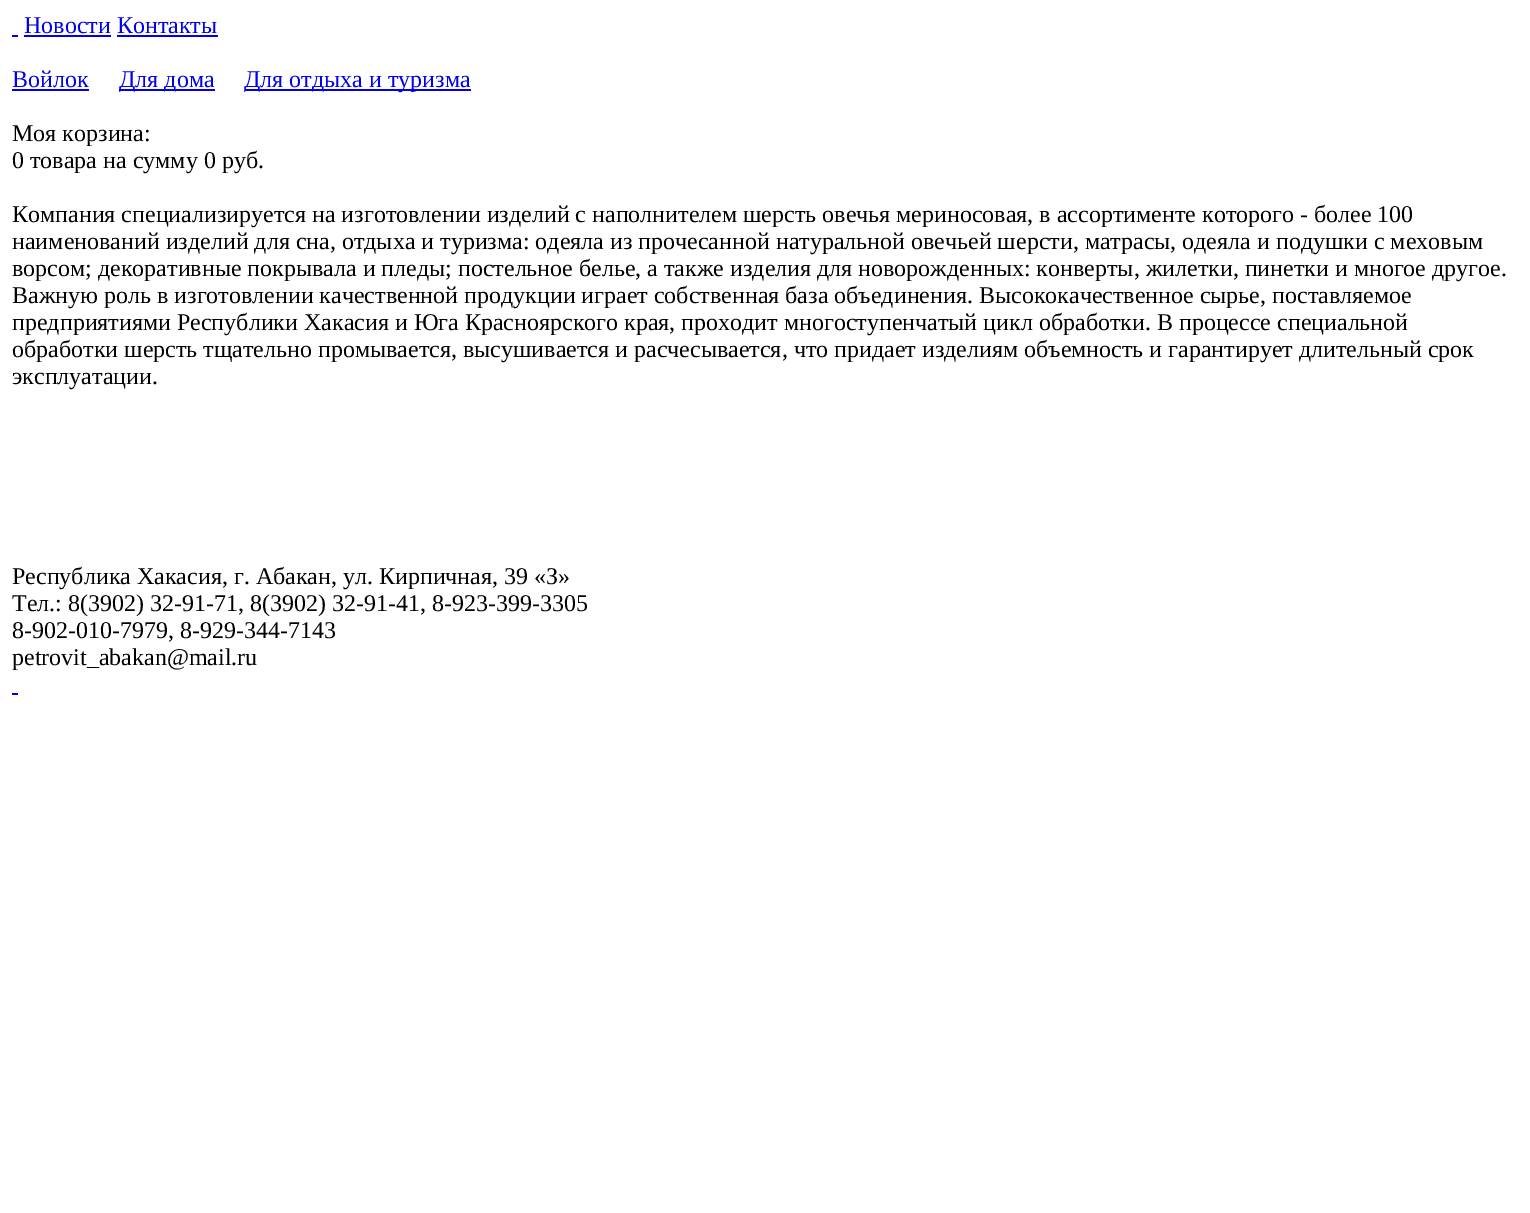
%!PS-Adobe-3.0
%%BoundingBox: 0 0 1530 1213
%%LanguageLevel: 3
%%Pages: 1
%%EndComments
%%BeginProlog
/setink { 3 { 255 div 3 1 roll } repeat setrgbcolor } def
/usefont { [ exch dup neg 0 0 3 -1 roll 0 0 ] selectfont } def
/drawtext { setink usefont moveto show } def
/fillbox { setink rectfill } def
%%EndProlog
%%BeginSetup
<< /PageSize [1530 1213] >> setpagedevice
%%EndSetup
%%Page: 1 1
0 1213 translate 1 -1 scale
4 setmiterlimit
0 0 1530 1213 255 255 255 fillbox
(Новости Контакты) 24 33 /LiberationSerif-Regular 24 0 0 238 drawtext
24 35 87 2 0 0 238 fillbox
12 35 6 2 0 0 238 fillbox
117 35 101 2 0 0 238 fillbox
(Войлок) 12 87 /LiberationSerif-Regular 24 0 0 238 drawtext
12 89 77 2 0 0 238 fillbox
119 89 96 2 0 0 238 fillbox
(Для дома) 119 87 /LiberationSerif-Regular 24 0 0 238 drawtext
245 89 226 2 0 0 238 fillbox
(Для отдыха и туризма) 244 87 /LiberationSerif-Regular 24 0 0 238 drawtext
(Моя корзина:) 12 141 /LiberationSerif-Regular 24 0 0 0 drawtext
(0 товара на сумму 0 руб.) 12 168 /LiberationSerif-Regular 24 0 0 0 drawtext
(Компания специализируется на изготовлении изделий с наполнителем шерсть овечья мериносовая, в ассортименте которого - более 100) 12 222 /LiberationSerif-Regular 24 0 0 0 drawtext
(наименований изделий для сна, отдыха и туризма: одеяла из прочесанной натуральной овечьей шерсти, матрасы, одеяла и подушки с меховым) 12 249 /LiberationSerif-Regular 24 0 0 0 drawtext
(ворсом; декоративные покрывала и пледы; постельное белье, а также изделия для новорожденных: конверты, жилетки, пинетки и многое другое.) 12 276 /LiberationSerif-Regular 24 0 0 0 drawtext
(Важную роль в изготовлении качественной продукции играет собственная база объединения. Высококачественное сырье, поставляемое) 12 303 /LiberationSerif-Regular 24 0 0 0 drawtext
(предприятиями Республики Хакасия и Юга Красноярского края, проходит многоступенчатый цикл обработки. В процессе специальной) 12 330 /LiberationSerif-Regular 24 0 0 0 drawtext
(обработки шерсть тщательно промывается, высушивается и расчесывается, что придает изделиям объемность и гарантирует длительный срок) 12 357 /LiberationSerif-Regular 24 0 0 0 drawtext
(эксплуатации.) 12 384 /LiberationSerif-Regular 24 0 0 0 drawtext
(Республика Хакасия, г. Абакан, ул. Кирпичная, 39 «З») 12 584 /LiberationSerif-Regular 24 0 0 0 drawtext
(Тел.: 8\(3902\) 32-91-71, 8\(3902\) 32-91-41, 8-923-399-3305) 12 611 /LiberationSerif-Regular 24 0 0 0 drawtext
(8-902-010-7979, 8-929-344-7143) 12 638 /LiberationSerif-Regular 24 0 0 0 drawtext
(petrovit_abakan@mail.ru) 12 665 /LiberationSerif-Regular 24 0 0 0 drawtext
12 693 6 2 0 0 238 fillbox
showpage
%%EOF
